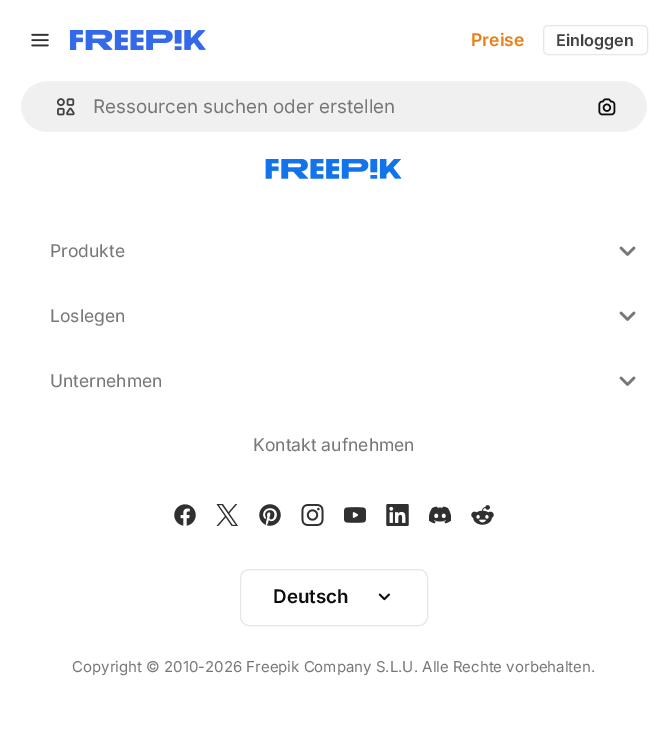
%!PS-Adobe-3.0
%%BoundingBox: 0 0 667 738
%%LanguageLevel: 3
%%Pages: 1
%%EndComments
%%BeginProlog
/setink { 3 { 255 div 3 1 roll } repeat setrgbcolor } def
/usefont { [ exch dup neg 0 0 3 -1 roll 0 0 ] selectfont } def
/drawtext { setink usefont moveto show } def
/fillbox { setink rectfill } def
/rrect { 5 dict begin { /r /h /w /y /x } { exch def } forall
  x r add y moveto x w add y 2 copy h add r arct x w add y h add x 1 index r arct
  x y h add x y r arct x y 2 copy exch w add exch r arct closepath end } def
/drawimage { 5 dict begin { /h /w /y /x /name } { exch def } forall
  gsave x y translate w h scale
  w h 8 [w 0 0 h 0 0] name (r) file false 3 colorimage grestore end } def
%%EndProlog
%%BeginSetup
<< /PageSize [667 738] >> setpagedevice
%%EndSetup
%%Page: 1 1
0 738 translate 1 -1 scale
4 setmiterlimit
0 0 667 738 255 255 255 fillbox
(assets/img1.rgb) 31 33 18 14 drawimage
(assets/img2.rgb) 70 30 136 20 drawimage
(Preise) 471 46 /Inter-SemiBold 17.5 234 126 17 drawtext
231 231 231 setink
543.5 25.5 104 29 4.5 rrect stroke
(Einloggen) 556 46 /Inter-SemiBold 16.25 66 66 66 drawtext
240 240 240 setink
20.5 80.5 627 52 26 rrect gsave fill grestore
255 255 255 setink
stroke
(assets/img3.rgb) 56 98 19 18 drawimage
(Ressourcen suchen oder erstellen) 93 113 /Inter-Regular 18.75 119 119 119 drawtext
(assets/img4.rgb) 598 98 18 18 drawimage
(assets/img5.rgb) 265 159 137 20 drawimage
(Produkte) 50 257 /Inter-Regular 17.5 119 119 119 drawtext
(assets/img6.rgb) 619 246 17 10 drawimage
(Loslegen) 50 322 /Inter-Regular 17.5 119 119 119 drawtext
(assets/img6.rgb) 619 311 17 10 drawimage
(Unternehmen) 50 387 /Inter-Regular 17.5 119 119 119 drawtext
(assets/img6.rgb) 619 376 17 10 drawimage
(Kontakt aufnehmen) 253 451 /Inter-Regular 17.5 119 119 119 drawtext
(assets/img7.rgb) 174 504 22 22 drawimage
(assets/img8.rgb) 216 504 22 22 drawimage
(assets/img9.rgb) 259 504 22 22 drawimage
(assets/img10.rgb) 301 504 23 22 drawimage
(assets/img11.rgb) 344 507 22 16 drawimage
(assets/img12.rgb) 386 504 23 22 drawimage
(assets/img13.rgb) 429 506 22 18 drawimage
(assets/img14.rgb) 471 505 23 20 drawimage
230 230 230 setink
240.5 569.5 187 56 8.5 rrect stroke
(Deutsch) 273 603 /Inter-SemiBold 18.75 13 13 13 drawtext
(assets/img15.rgb) 378 593 12 8 drawimage
(Copyright © 2010-2026 Freepik Company S.L.U. Alle Rechte vorbehalten.) 72 672 /Inter-Regular 15 119 119 119 drawtext
showpage
%%EOF
